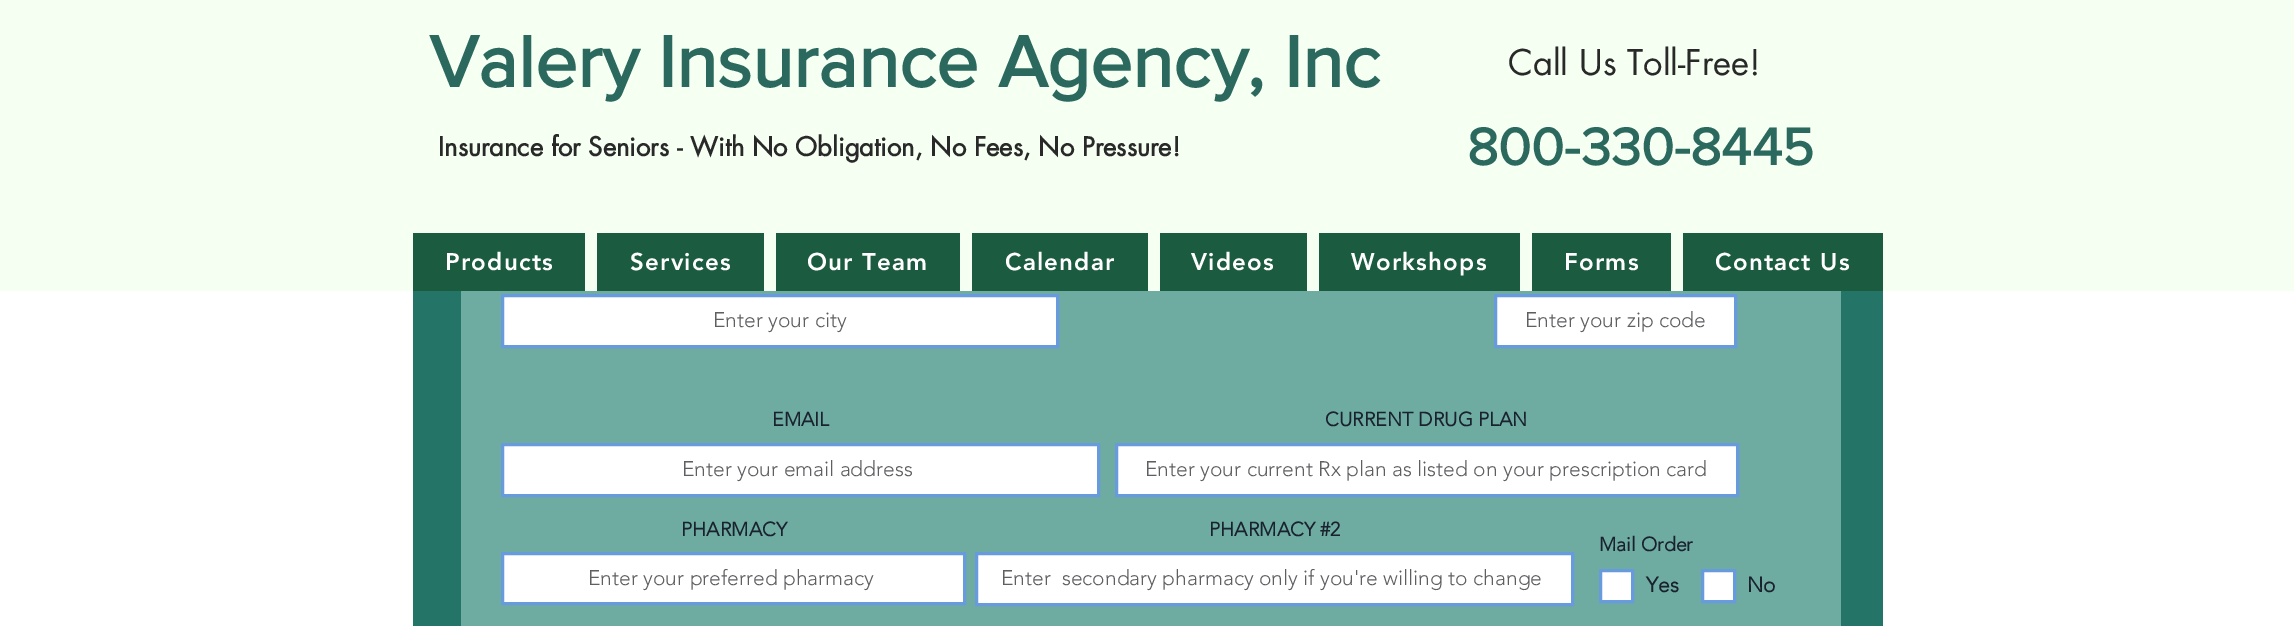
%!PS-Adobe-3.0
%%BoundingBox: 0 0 2294 626
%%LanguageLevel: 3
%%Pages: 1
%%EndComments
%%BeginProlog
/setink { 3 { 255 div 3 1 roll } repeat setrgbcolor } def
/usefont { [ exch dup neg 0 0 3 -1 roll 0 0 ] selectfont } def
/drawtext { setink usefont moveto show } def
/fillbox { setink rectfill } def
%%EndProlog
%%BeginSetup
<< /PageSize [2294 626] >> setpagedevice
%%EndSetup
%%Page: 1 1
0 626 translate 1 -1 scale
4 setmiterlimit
0 0 2294 626 255 255 255 fillbox
0 0 2294 291 245 255 242 fillbox
(Valery Insurance Agency, Inc) 429 87 /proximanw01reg-Bold 75 43 104 93 drawtext
(Call Us Toll-Free!) 1508 75 /futura-Regular 34.5 41 41 41 drawtext
(Insurance for Seniors - With No Obligation, No Fees, No Pressure!) 438 156 /futura-Bold 25.5 41 41 41 drawtext
(800-330-8445) 1467 165 /proximanw01reg-Bold 54 43 104 93 drawtext
413 233 172 58 27 91 63 fillbox
/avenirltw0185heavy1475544-Black 24 usefont
255 255 255 setink
445 270 moveto 1.25 0 (Products) ashow
597 233 167 58 27 91 63 fillbox
255 255 255 setink
630 270 moveto 1.25 0 (Services) ashow
776 233 184 58 27 91 63 fillbox
255 255 255 setink
807 270 moveto 1.25 0 (Our Team) ashow
972 233 176 58 27 91 63 fillbox
255 255 255 setink
1005 270 moveto 1.25 0 (Calendar) ashow
1160 233 147 58 27 91 63 fillbox
255 255 255 setink
1191 270 moveto 1.25 0 (Videos) ashow
1319 233 201 58 27 91 63 fillbox
255 255 255 setink
1351 270 moveto 1.25 0 (Workshops) ashow
1532 233 139 58 27 91 63 fillbox
255 255 255 setink
1564 270 moveto 1.25 0 (Forms) ashow
1683 233 200 58 27 91 63 fillbox
255 255 255 setink
1715 270 moveto 1.25 0 (Contact Us) ashow
413 291 1470 335 36 117 103 fillbox
461 291 1380 335 110 172 161 fillbox
255 255 255 setink
502.5 295.5 moveto 1057.5 295.5 lineto 1057.5 346.5 lineto 502.5 346.5 lineto closepath gsave fill grestore
104 154 222 setink
3 setlinewidth
stroke
(Enter your city) 713 327 /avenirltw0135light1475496-Light 21 95 94 97 drawtext
255 255 255 setink
1495.5 295.5 moveto 1735.5 295.5 lineto 1735.5 346.5 lineto 1495.5 346.5 lineto closepath gsave fill grestore
104 154 222 setink
stroke
(Enter your zip code) 1525 327 /avenirltw0135light1475496-Light 21 95 94 97 drawtext
(EMAIL) 772 426 /avenirltw0135light1475496-Bold 19.5 27 34 47 drawtext
255 255 255 setink
502.5 444.5 moveto 1098.5 444.5 lineto 1098.5 495.5 lineto 502.5 495.5 lineto closepath gsave fill grestore
104 154 222 setink
stroke
(Enter your email address) 682 476 /avenirltw0135light1475496-Light 21 95 94 97 drawtext
(CURRENT DRUG PLAN) 1325 426 /avenirltw0135light1475496-Bold 19.5 27 34 47 drawtext
255 255 255 setink
1116.5 444.5 moveto 1737.5 444.5 lineto 1737.5 495.5 lineto 1116.5 495.5 lineto closepath gsave fill grestore
104 154 222 setink
stroke
(Enter your current Rx plan as listed on your prescription card) 1145 476 /avenirltw0135light1475496-Light 21 95 94 97 drawtext
(PHARMACY) 681 536 /avenirltw0135light1475496-Bold 19.5 27 34 47 drawtext
255 255 255 setink
502.5 553.5 moveto 964.5 553.5 lineto 964.5 603.5 lineto 502.5 603.5 lineto closepath gsave fill grestore
104 154 222 setink
stroke
(Enter your preferred pharmacy) 588 585 /avenirltw0135light1475496-Light 21 95 94 97 drawtext
(PHARMACY #2) 1209 536 /avenirltw0135light1475496-Bold 19.5 27 34 47 drawtext
255 255 255 setink
976.5 553.5 moveto 1572.5 553.5 lineto 1572.5 604.5 lineto 976.5 604.5 lineto closepath gsave fill grestore
104 154 222 setink
stroke
(Enter  secondary pharmacy only if you're willing to change) 1001 585 /avenirltw0135light1475496-Light 21 95 94 97 drawtext
(Mail Order) 1599 551 /avenirltw0135light1475496-Bold 19.5 27 34 47 drawtext
255 255 255 setink
1600.5 570.5 moveto 1632.5 570.5 lineto 1632.5 601.5 lineto 1600.5 601.5 lineto closepath gsave fill grestore
104 154 222 setink
stroke
(Yes) 1646 592 /avenirltw0135light1475496-Bold 21 27 34 47 drawtext
255 255 255 setink
1702.5 570.5 moveto 1734.5 570.5 lineto 1734.5 601.5 lineto 1702.5 601.5 lineto closepath gsave fill grestore
104 154 222 setink
stroke
(No) 1747 592 /avenirltw0135light1475496-Bold 21 27 34 47 drawtext
showpage
%%EOF
